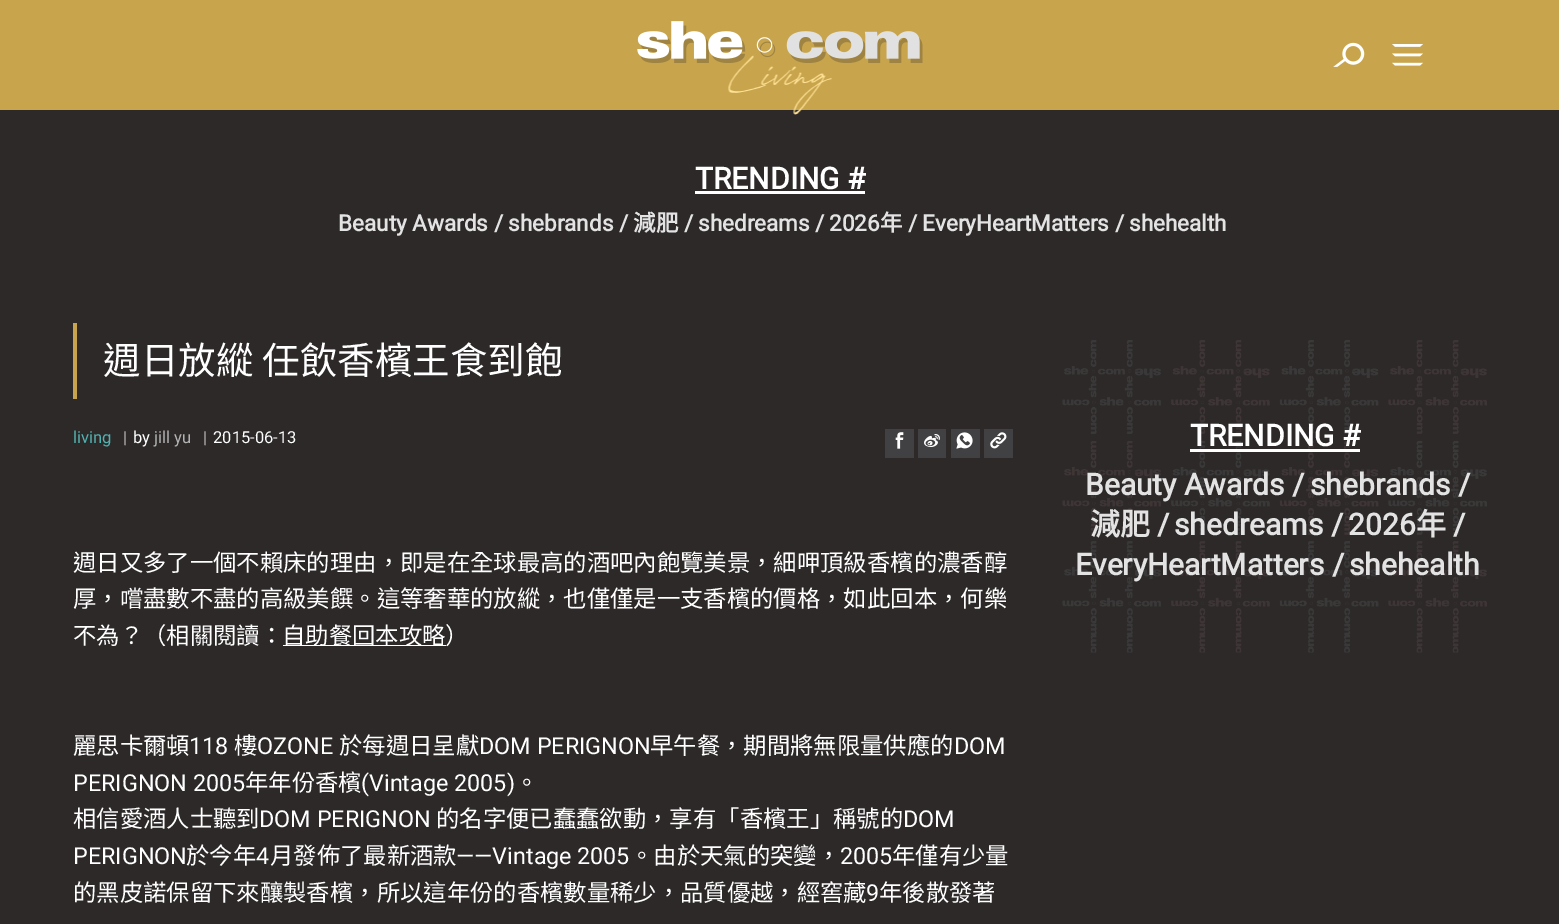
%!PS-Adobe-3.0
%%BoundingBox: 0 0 1559 924
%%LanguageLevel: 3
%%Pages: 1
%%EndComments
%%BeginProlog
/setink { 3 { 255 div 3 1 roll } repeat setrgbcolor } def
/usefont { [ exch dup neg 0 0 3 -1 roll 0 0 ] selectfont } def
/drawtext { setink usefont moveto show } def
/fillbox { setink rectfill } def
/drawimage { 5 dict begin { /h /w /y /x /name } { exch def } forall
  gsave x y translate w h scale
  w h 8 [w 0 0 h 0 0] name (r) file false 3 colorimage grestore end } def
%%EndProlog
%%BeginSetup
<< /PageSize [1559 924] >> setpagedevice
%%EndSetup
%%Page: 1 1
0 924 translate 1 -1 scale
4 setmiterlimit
0 0 1559 924 45 41 41 fillbox
0 0 1559 110 200 165 77 fillbox
(assets/img1.rgb) 637 21 286 42 drawimage
(assets/img2.rgb) 728 55 104 60 drawimage
(assets/img3.rgb) 1333 42 32 25 drawimage
(assets/img4.rgb) 1392 44 31 22 drawimage
(TRENDING #) 695 189 /Roboto-Bold 30 255 255 255 drawtext
695 191 170 3 255 255 255 fillbox
(Beauty Awards) 338 231 /Roboto-Bold 22.5 227 227 227 drawtext
(/) 494 231 /Roboto-Bold 22.5 227 227 227 drawtext
(shebrands) 508 231 /Roboto-Bold 22.5 227 227 227 drawtext
(/) 619 231 /Roboto-Bold 22.5 227 227 227 drawtext
(減肥) 633 231 /NotoSansCJKTC-Bold 22.5 227 227 227 drawtext
(/) 684 231 /Roboto-Bold 22.5 227 227 227 drawtext
(shedreams) 698 231 /Roboto-Bold 22.5 227 227 227 drawtext
(/) 815 231 /Roboto-Bold 22.5 227 227 227 drawtext
(2026) 829 231 /Roboto-Bold 22.5 227 227 227 drawtext
(年) 880 231 /NotoSansCJKTC-Bold 22.5 227 227 227 drawtext
(/) 908 231 /Roboto-Bold 22.5 227 227 227 drawtext
(EveryHeartMatters) 922 231 /Roboto-Bold 22.5 227 227 227 drawtext
(/) 1115 231 /Roboto-Bold 22.5 227 227 227 drawtext
(shehealth) 1129 231 /Roboto-Bold 22.5 227 227 227 drawtext
73 323 4 76 200 165 77 fillbox
/NotoSansCJKTC-Regular 37.5 usefont
255 255 255 setink
103 374 moveto 1 0 32 (週日放縱 任飲香檳王食到飽) widthshow
(living) 73 443 /Roboto-Regular 16.5 81 179 178 drawtext
(|) 123 443 /Roboto-Regular 16.5 204 204 204 drawtext
(by) 133 443 /Roboto-Regular 16.5 255 255 255 drawtext
(jill yu) 154 443 /Roboto-Regular 16.5 179 179 179 drawtext
(|) 203 443 /Roboto-Regular 16.5 204 204 204 drawtext
(2015-06-13) 213 443 /Roboto-Regular 16.5 255 255 255 drawtext
885 429 29 29 65 64 66 fillbox
(assets/img5.rgb) 895 432 9 17 drawimage
918 429 28 29 65 64 66 fillbox
(assets/img6.rgb) 924 434 16 13 drawimage
951 429 29 29 65 64 66 fillbox
(assets/img7.rgb) 956 432 17 17 drawimage
984 429 29 29 65 64 66 fillbox
(assets/img8.rgb) 990 432 17 17 drawimage
(週日又多了一個不賴床的理由，即是在全球最高的酒吧內飽覽美景，細呷頂級香檳的濃香醇) 73 571 /NotoSansCJKTC-Regular 23.35 255 255 255 drawtext
(厚，嚐盡數不盡的高級美饌。這等奢華的放縱，也僅僅是一支香檳的價格，如此回本，何樂) 73 607 /NotoSansCJKTC-Regular 23.35 255 255 255 drawtext
(不為？（相關閱讀：) 73 644 /NotoSansCJKTC-Regular 23.35 255 255 255 drawtext
283 645 163 1 255 255 255 fillbox
(自助餐回本攻略）) 282 644 /NotoSansCJKTC-Regular 23.35 255 255 255 drawtext
(麗思卡爾頓) 73 754 /NotoSansCJKTC-Regular 23.35 255 255 255 drawtext
(118) 189 754 /Roboto-Regular 23.35 255 255 255 drawtext
(樓) 234 754 /NotoSansCJKTC-Regular 23.35 255 255 255 drawtext
(OZONE) 257 754 /Roboto-Regular 23.35 255 255 255 drawtext
(於每週日呈獻) 339 754 /NotoSansCJKTC-Regular 23.35 255 255 255 drawtext
(DOM PERIGNON) 479 754 /Roboto-Regular 23.35 255 255 255 drawtext
(早午餐，期間將無限量供應的) 650 754 /NotoSansCJKTC-Regular 23.35 255 255 255 drawtext
(DOM) 954 754 /Roboto-Regular 23.35 255 255 255 drawtext
(PERIGNON 2005) 73 791 /Roboto-Regular 23.35 255 255 255 drawtext
(年年份香檳) 245 791 /NotoSansCJKTC-Regular 23.35 255 255 255 drawtext
(\(Vintage 2005\)) 361 791 /Roboto-Regular 23.35 255 255 255 drawtext
(。) 515 791 /NotoSansCJKTC-Regular 23.35 255 255 255 drawtext
(相信愛酒人士聽到) 73 827 /NotoSansCJKTC-Regular 23.35 255 255 255 drawtext
(DOM PERIGNON) 259 827 /Roboto-Regular 23.35 255 255 255 drawtext
(的名字便已蠢蠢欲動，享有「香檳王」稱號的) 436 827 /NotoSansCJKTC-Regular 23.35 255 255 255 drawtext
(DOM) 903 827 /Roboto-Regular 23.35 255 255 255 drawtext
(PERIGNON) 73 864 /Roboto-Regular 23.35 255 255 255 drawtext
(於今年) 186 864 /NotoSansCJKTC-Regular 23.35 255 255 255 drawtext
(4) 256 864 /Roboto-Regular 23.35 255 255 255 drawtext
(月發佈了最新酒款) 270 864 /NotoSansCJKTC-Regular 23.35 255 255 255 drawtext
/Roboto-Regular 23.35 usefont
456 864 moveto -1 0 32 (——Vintage 2005) widthshow
(。由於天氣的突變，) 630 864 /NotoSansCJKTC-Regular 23.35 255 255 255 drawtext
(2005) 840 864 /Roboto-Regular 23.35 255 255 255 drawtext
(年僅有少量) 892 864 /NotoSansCJKTC-Regular 23.35 255 255 255 drawtext
(的黑皮諾保留下來釀製香檳，所以這年份的香檳數量稀少，品質優越，經窖藏) 73 901 /NotoSansCJKTC-Regular 23.35 255 255 255 drawtext
(9) 866 901 /Roboto-Regular 23.35 255 255 255 drawtext
(年後散發著) 879 901 /NotoSansCJKTC-Regular 23.35 255 255 255 drawtext
(assets/img9.rgb) 1062 340 425 313 drawimage
(TRENDING #) 1190 446 /Roboto-Bold 30 255 255 255 drawtext
1190 449 170 3 255 255 255 fillbox
(Beauty Awards) 1085 495 /Roboto-Bold 30 227 227 227 drawtext
(/) 1292 495 /Roboto-Bold 30 227 227 227 drawtext
(shebrands) 1310 495 /Roboto-Bold 30 227 227 227 drawtext
(/) 1458 495 /Roboto-Bold 30 227 227 227 drawtext
(減肥) 1090 535 /NotoSansCJKTC-Bold 30 227 227 227 drawtext
(/) 1157 535 /Roboto-Bold 30 227 227 227 drawtext
(shedreams) 1174 535 /Roboto-Bold 30 227 227 227 drawtext
(/) 1331 535 /Roboto-Bold 30 227 227 227 drawtext
(2026) 1348 535 /Roboto-Bold 30 227 227 227 drawtext
(年) 1416 535 /NotoSansCJKTC-Bold 30 227 227 227 drawtext
(/) 1453 535 /Roboto-Bold 30 227 227 227 drawtext
(EveryHeartMatters) 1075 575 /Roboto-Bold 30 227 227 227 drawtext
(/) 1332 575 /Roboto-Bold 30 227 227 227 drawtext
(shehealth) 1349 575 /Roboto-Bold 30 227 227 227 drawtext
showpage
%%EOF
